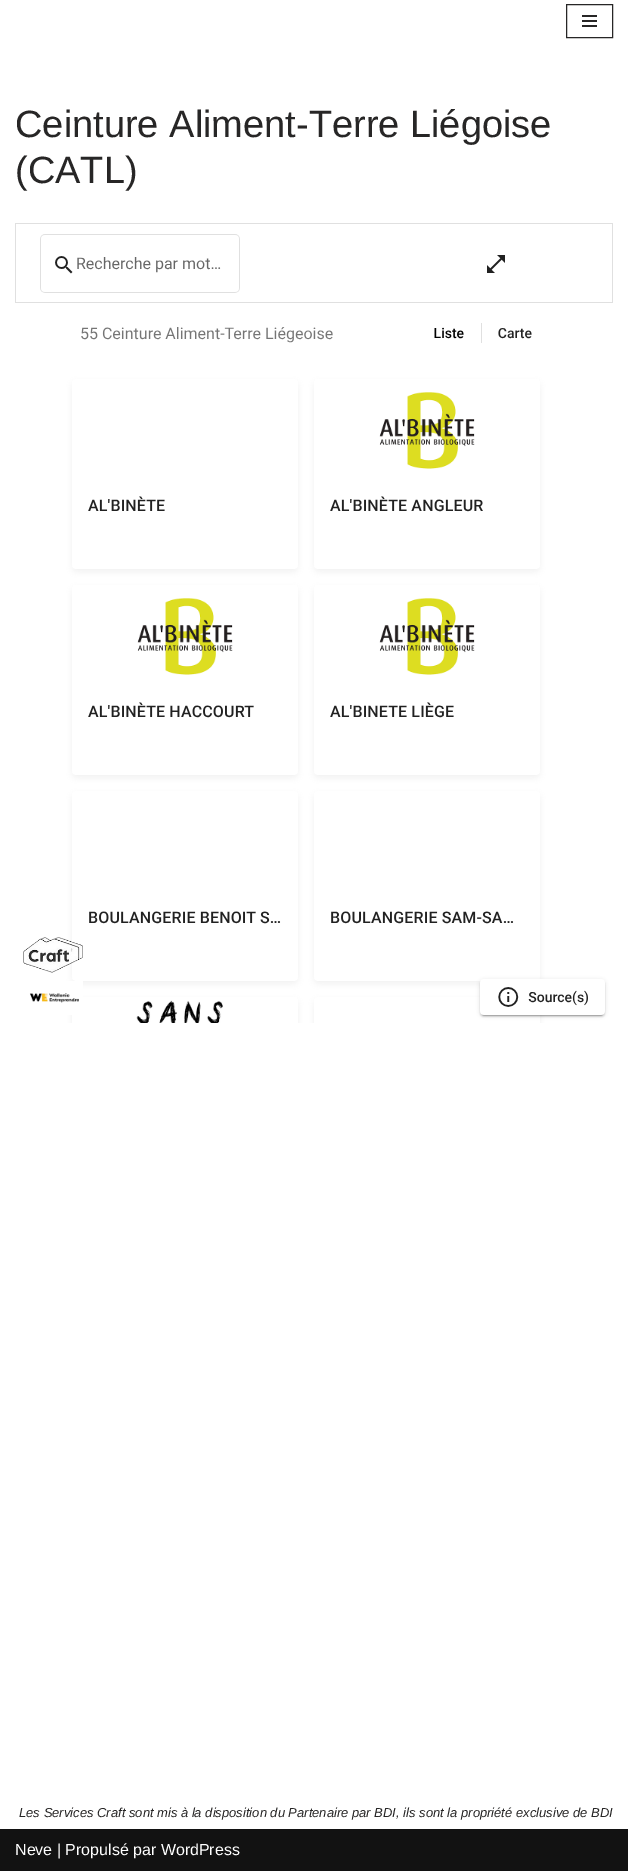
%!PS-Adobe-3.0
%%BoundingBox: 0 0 628 1871
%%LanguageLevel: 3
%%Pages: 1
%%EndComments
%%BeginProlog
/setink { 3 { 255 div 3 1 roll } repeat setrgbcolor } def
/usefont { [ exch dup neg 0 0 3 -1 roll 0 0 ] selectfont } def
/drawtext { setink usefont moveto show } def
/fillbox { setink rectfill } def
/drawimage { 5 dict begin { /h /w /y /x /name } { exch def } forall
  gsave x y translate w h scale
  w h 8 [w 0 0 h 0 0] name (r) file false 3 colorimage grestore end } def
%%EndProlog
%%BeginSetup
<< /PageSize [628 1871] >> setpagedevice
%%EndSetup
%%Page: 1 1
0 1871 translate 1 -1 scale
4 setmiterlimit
0 0 628 1871 255 255 255 fillbox
39 38 38 setink
566.5 4.5 46 33 rectstroke
582 15 15 2 39 38 38 fillbox
582 20 15 2 39 38 38 fillbox
582 25 15 2 39 38 38 fillbox
(Ceinture Aliment-Terre Liégoise) 15 137 /LiberationSans-Regular 38 39 38 38 drawtext
(\(CATL\)) 15 183 /LiberationSans-Regular 38 39 38 38 drawtext
(assets/img1.rgb) 15 223 598 800 drawimage
(Les Services Craft sont mis à la disposition du Partenaire par BDI, ils sont la propriété exclusive de BDI) 19 1817 /LiberationSans-Italic 13 39 38 38 drawtext
0 1829 628 42 18 18 18 fillbox
(Neve | Propulsé par WordPress) 15 1855 /LiberationSans-Regular 16 255 255 255 drawtext
showpage
%%EOF
